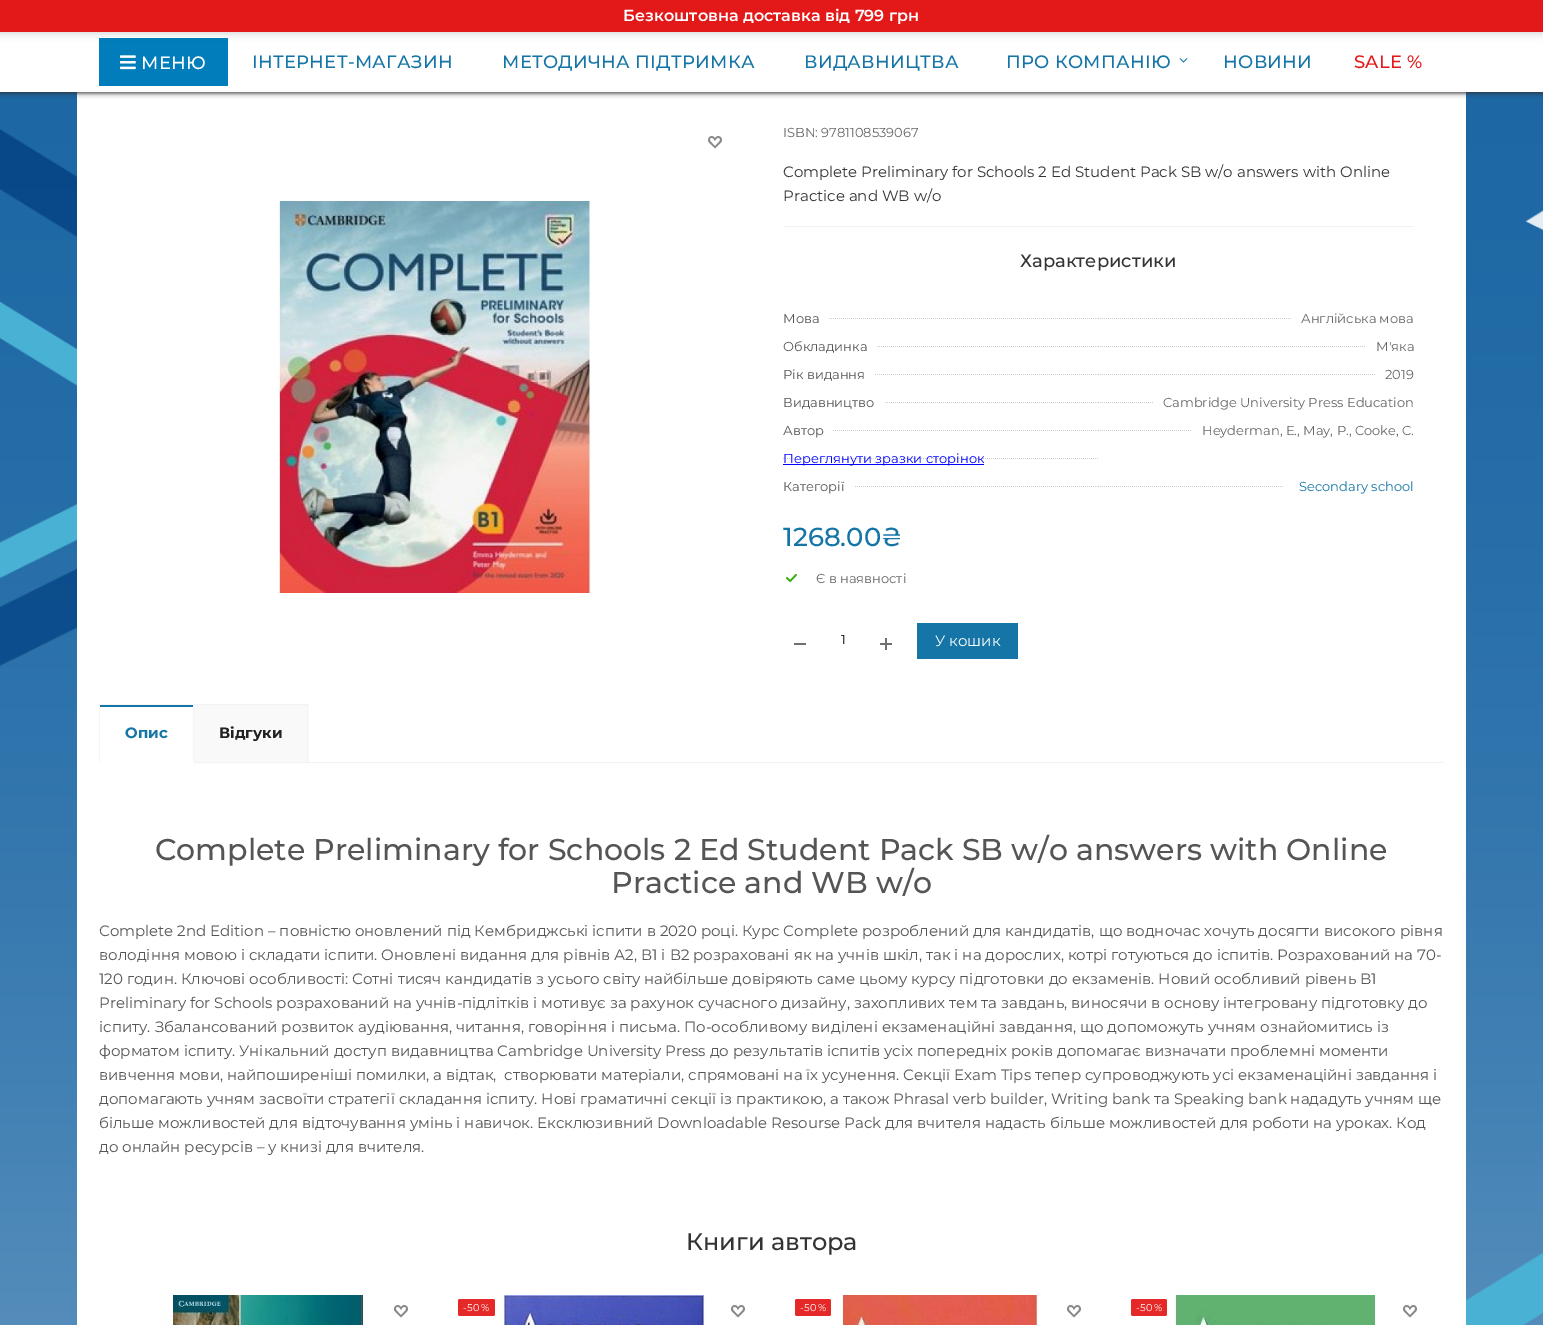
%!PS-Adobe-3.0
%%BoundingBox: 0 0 1543 1325
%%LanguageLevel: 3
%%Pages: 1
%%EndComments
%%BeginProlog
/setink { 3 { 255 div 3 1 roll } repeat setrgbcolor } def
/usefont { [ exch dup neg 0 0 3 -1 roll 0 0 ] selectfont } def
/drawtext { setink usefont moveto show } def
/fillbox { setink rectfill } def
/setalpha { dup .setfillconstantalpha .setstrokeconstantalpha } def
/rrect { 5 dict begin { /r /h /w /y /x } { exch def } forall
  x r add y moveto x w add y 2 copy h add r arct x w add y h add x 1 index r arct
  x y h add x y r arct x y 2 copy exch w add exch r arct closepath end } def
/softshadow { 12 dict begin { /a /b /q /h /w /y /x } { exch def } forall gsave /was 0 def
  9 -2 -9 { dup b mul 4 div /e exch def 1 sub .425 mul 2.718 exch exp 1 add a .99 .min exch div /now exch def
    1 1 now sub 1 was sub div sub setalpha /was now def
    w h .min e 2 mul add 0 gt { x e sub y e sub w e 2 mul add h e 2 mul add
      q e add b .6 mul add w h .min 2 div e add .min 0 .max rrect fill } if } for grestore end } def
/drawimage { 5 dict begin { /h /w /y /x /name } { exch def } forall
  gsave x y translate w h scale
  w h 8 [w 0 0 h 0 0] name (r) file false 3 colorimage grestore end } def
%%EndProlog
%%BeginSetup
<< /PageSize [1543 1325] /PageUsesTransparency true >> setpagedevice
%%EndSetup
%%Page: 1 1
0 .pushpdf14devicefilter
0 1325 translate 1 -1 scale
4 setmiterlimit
0 0 1543 1325 255 255 255 fillbox
(assets/img1.rgb) 0 92 1543 1233 drawimage
77 92 1389 1233 255 255 255 fillbox
47 47 47 setink
0 1 1543 92 0 2.5 1 softshadow
0 32 1543 60 255 255 255 fillbox
99 38 129 48 0 125 186 fillbox
0 0 0 setink
0 2 1543 32 0 4 0.15 softshadow
0 0 1543 32 227 24 24 fillbox
(Безкоштовна доставка від 799 грн) 623 21 /Montserrat-SemiBold 16 255 255 255 drawtext
(assets/img2.rgb) 120 55 16 15 drawimage
/Montserrat-Medium 18 usefont
141 69 moveto 0.25 0 (МЕНЮ) ashow
21 117 166 setink
252 68 moveto 0.25 0 (ІНТЕРНЕТ-МАГАЗИН) ashow
502 68 moveto 0.25 0 (МЕТОДИЧНА ПІДТРИМКА) ashow
804 68 moveto 0.25 0 (ВИДАВНИЦТВА) ashow
1006 68 moveto 0.25 0 (ПРО КОМПАНІЮ) ashow
(assets/img3.rgb) 1179 58 9 5 drawimage
1223 68 moveto 0.25 0 (НОВИНИ) ashow
227 24 24 setink
1354 68 moveto 0.25 0 (SALE %) ashow
(assets/img4.rgb) 708 136 14 13 drawimage
(assets/img5.rgb) 277 201 314 392 drawimage
783 226 631 1 242 242 242 fillbox
(ISBN: 9781108539067) 783 137 /Montserrat-Regular 13 102 102 102 drawtext
(Complete Preliminary for Schools 2 Ed Student Pack SB w/o answers with Online) 783 177 /Montserrat-Regular 15 51 51 51 drawtext
(Practice and WB w/o) 783 201 /Montserrat-Regular 15 51 51 51 drawtext
(Характеристики) 1020 267 /Montserrat-Medium 18 51 51 51 drawtext
(assets/img6.rgb) 829 318 269 1 drawimage
(Мова) 783 323 /Montserrat-Regular 13 85 85 85 drawtext
(assets/img7.rgb) 1098 318 193 1 drawimage
(Англійська мова) 1301 323 /Montserrat-Regular 13 102 102 102 drawtext
(assets/img8.rgb) 877 346 221 1 drawimage
(Обкладинка) 783 351 /Montserrat-Regular 13 85 85 85 drawtext
(assets/img9.rgb) 1098 346 267 1 drawimage
(М'яка) 1376 351 /Montserrat-Regular 13 102 102 102 drawtext
(assets/img10.rgb) 875 374 223 1 drawimage
(Рік видання) 783 379 /Montserrat-Regular 13 85 85 85 drawtext
(assets/img11.rgb) 1098 374 277 1 drawimage
(2019) 1385 379 /Montserrat-Regular 13 102 102 102 drawtext
(assets/img12.rgb) 885 402 213 1 drawimage
(Видавництво) 783 407 /Montserrat-Regular 13 85 85 85 drawtext
(assets/img13.rgb) 1098 402 55 1 drawimage
(Cambridge University Press Education) 1163 407 /Montserrat-Regular 13 102 102 102 drawtext
(assets/img14.rgb) 833 430 265 1 drawimage
(Автор) 783 435 /Montserrat-Regular 13 85 85 85 drawtext
(assets/img15.rgb) 1098 430 93 1 drawimage
(Heyderman, E., May, P., Cooke, C.) 1202 435 /Montserrat-Regular 13 102 102 102 drawtext
(assets/img16.rgb) 783 458 315 1 drawimage
783 464 201 1 0 0 255 fillbox
(Переглянути зразки сторінок) 783 463 /Montserrat-Regular 13 0 0 255 drawtext
(assets/img17.rgb) 855 486 243 1 drawimage
(Категорії) 783 491 /Montserrat-Regular 13 85 85 85 drawtext
(assets/img18.rgb) 1098 486 185 1 drawimage
(Secondary school) 1299 491 /Montserrat-Regular 13 21 117 166 drawtext
(1268.00₴) 783 546 /Montserrat-Medium 26 21 117 166 drawtext
(assets/img19.rgb) 786 574 11 8 drawimage
(Є в наявності) 816 583 /Montserrat-Regular 13 102 102 102 drawtext
794 643 12 2 112 112 112 fillbox
(1) 841 644 /Montserrat-Regular 13 0 0 0 drawtext
(assets/img20.rgb) 880 638 12 12 drawimage
917 623 101 36 21 117 166 fillbox
(У кошик) 935 646 /Montserrat-Regular 15 255 255 255 drawtext
308 762 1136 1 242 242 242 fillbox
249 249 250 setink
193.5 704.5 moveto 307.5 704.5 lineto 307.5 762.5 lineto 193.5 762.5 lineto closepath gsave fill grestore
242 242 242 setink
stroke
99 704 95 1 245 245 245 fillbox
193 704 1 59 245 245 245 fillbox
193 762 1 1 255 255 255 fillbox
99 704 1 59 245 245 245 fillbox
100 705 93 2 21 117 166 fillbox
(Опис) 125 738 /Montserrat-Bold 15 21 117 166 drawtext
(Відгуки) 219 738 /Montserrat-Bold 15 34 34 34 drawtext
(Complete Preliminary for Schools 2 Ed Student Pack SB w/o answers with Online) 155 860 /Montserrat-Medium 30 85 85 85 drawtext
(Practice and WB w/o) 611 893 /Montserrat-Medium 30 85 85 85 drawtext
(Сomplete 2nd Edition – повністю оновлений під Кембриджські іспити в 2020 році. Курс Сomplete розроблений для кандидатів, що водночас хочуть досягти високого рівня) 99 936 /Montserrat-Regular 15 85 85 85 drawtext
(володіння мовою і складати іспити. Оновлені видання для рівнів А2, В1 і В2 розраховані як на учнів шкіл, так і на дорослих, котрі готуються до іспитів. Розрахований на 70-) 99 960 /Montserrat-Regular 15 85 85 85 drawtext
(120 годин. Ключові особливості: Сотні тисяч кандидатів з усього світу найбільше довіряють саме цьому курсу підготовки до екзаменів. Новий особливий рівень B1) 99 984 /Montserrat-Regular 15 85 85 85 drawtext
(Preliminary for Schools розрахований на учнів-підлітків і мотивує за рахунок сучасного дизайну, захопливих тем та завдань, виносячи в основу інтегровану підготовку до) 99 1008 /Montserrat-Regular 15 85 85 85 drawtext
(іспиту. Збалансований розвиток аудіювання, читання, говоріння і письма. По-особливому виділені екзаменаційні завдання, що допоможуть учням ознайомитись із) 99 1032 /Montserrat-Regular 15 85 85 85 drawtext
(форматом іспиту. Унікальний доступ видавництва Cambridge University Press до результатів іспитів усіх попередніх років допомагає визначати проблемні моменти) 99 1056 /Montserrat-Regular 15 85 85 85 drawtext
(вивчення мови, найпоширеніші помилки, а відтак,  створювати матеріали, спрямовані на їх усунення. Секції Exam Tips тепер супроводжують усі екзаменаційні завдання і) 99 1080 /Montserrat-Regular 15 85 85 85 drawtext
(допомагають учням засвоїти стратегії складання іспиту. Нові граматичні секції із практикою, а також Phrasal verb builder, Writing bank та Speaking bank нададуть учням ще) 99 1104 /Montserrat-Regular 15 85 85 85 drawtext
(більше можливостей для відточування умінь і навичок. Ексклюзивний Downloadable Resourse Pack для вчителя надасть більше можливостей для роботи на уроках. Код) 99 1128 /Montserrat-Regular 15 85 85 85 drawtext
(до онлайн ресурсів – у книзі для вчителя.) 99 1152 /Montserrat-Regular 15 85 85 85 drawtext
(Книги автора) 686 1250 /Montserrat-Medium 24 51 51 51 drawtext
(assets/img21.rgb) 161 1295 203 30 drawimage
(assets/img4.rgb) 394 1305 14 13 drawimage
229 41 41 setink
458 1299 37 17 2 rrect fill
/Montserrat-Regular 10 usefont
255 255 255 setink
463 1311 moveto 0.5 0 (-50%) ashow
(assets/img22.rgb) 497 1295 211 30 drawimage
(assets/img4.rgb) 731 1305 14 13 drawimage
229 41 41 setink
795 1299 36 17 2 rrect fill
255 255 255 setink
800 1311 moveto 0.5 0 (-50%) ashow
(assets/img23.rgb) 842 1295 196 30 drawimage
(assets/img4.rgb) 1067 1305 14 13 drawimage
229 41 41 setink
1131 1299 36 17 2 rrect fill
255 255 255 setink
1136 1311 moveto 0.5 0 (-50%) ashow
(assets/img24.rgb) 1174 1295 202 30 drawimage
(assets/img4.rgb) 1403 1305 14 13 drawimage
.poppdf14devicefilter showpage
%%EOF
